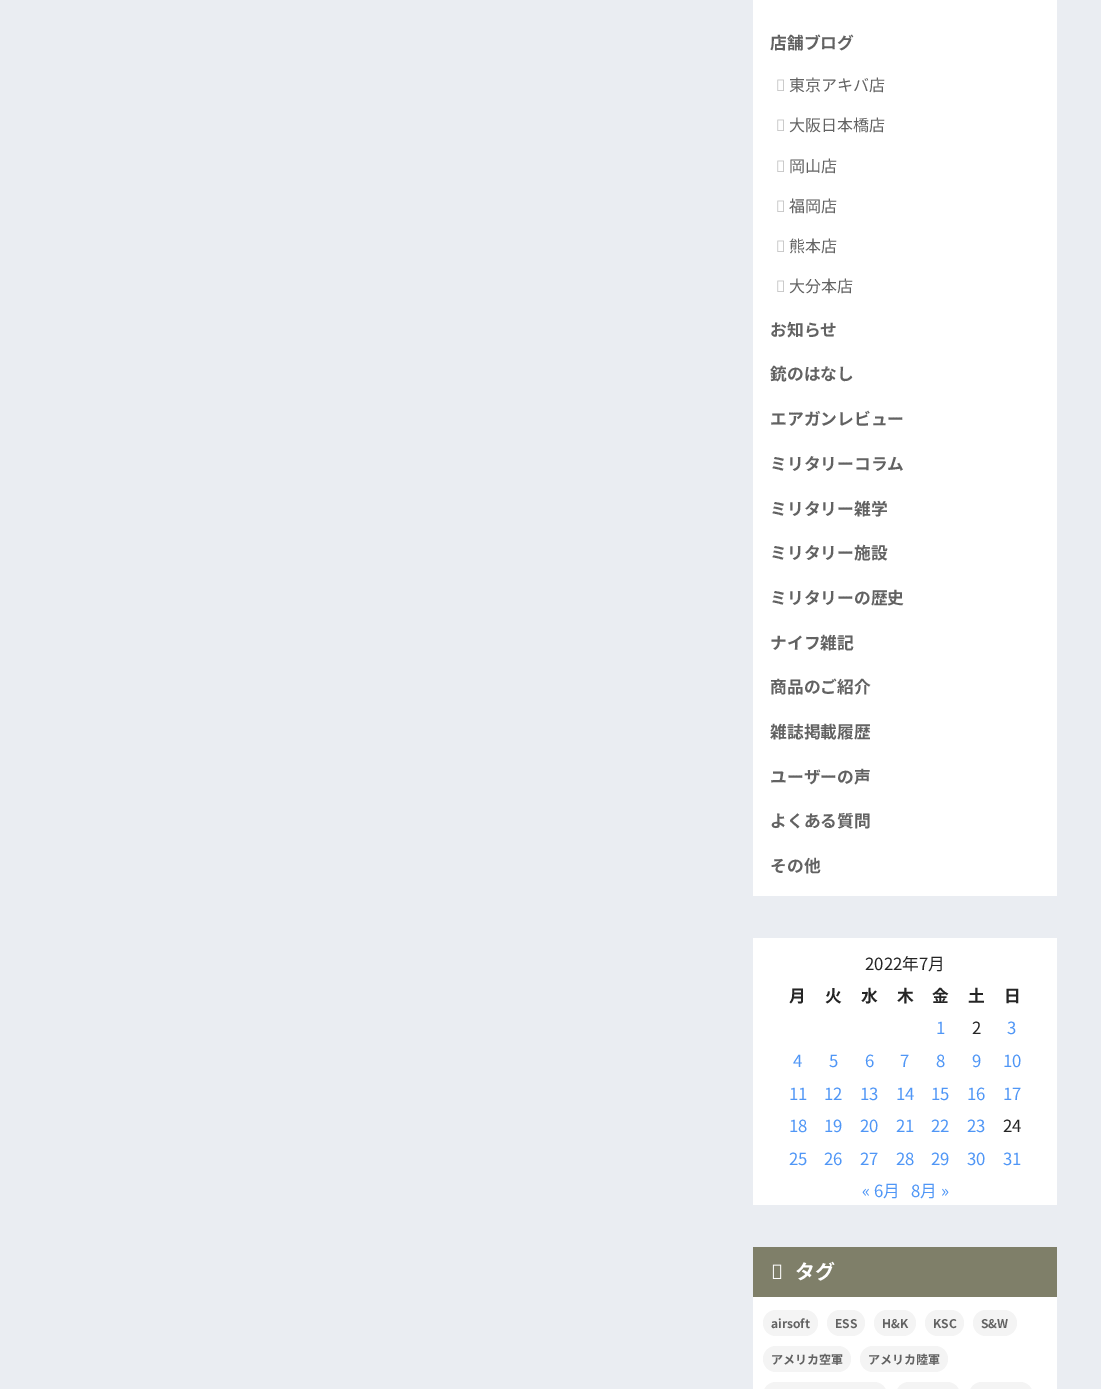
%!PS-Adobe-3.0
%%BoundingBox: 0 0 1101 1389
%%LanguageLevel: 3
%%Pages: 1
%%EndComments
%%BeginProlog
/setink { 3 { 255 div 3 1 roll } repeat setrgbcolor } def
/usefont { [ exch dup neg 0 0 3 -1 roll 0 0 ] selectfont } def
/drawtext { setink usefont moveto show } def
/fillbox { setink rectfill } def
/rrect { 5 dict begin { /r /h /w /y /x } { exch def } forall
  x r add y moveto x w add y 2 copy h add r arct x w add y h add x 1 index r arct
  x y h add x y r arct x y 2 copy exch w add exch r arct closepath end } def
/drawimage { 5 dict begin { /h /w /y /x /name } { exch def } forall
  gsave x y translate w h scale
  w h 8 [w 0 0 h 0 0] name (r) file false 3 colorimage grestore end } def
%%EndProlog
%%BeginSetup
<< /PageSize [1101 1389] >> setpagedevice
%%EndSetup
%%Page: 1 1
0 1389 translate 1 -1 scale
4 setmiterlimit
0 0 1101 1389 234 237 242 fillbox
753 0 304 896 255 255 255 fillbox
(店舗ブログ) 770 49 /NotoSansJP-Bold 16.75 98 98 98 drawtext
(assets/img1.rgb) 777 79 7 12 drawimage
(東京アキバ店) 789 91 /NotoSansJP-Regular 16 98 98 98 drawtext
(assets/img1.rgb) 777 119 7 12 drawimage
(大阪日本橋店) 789 131 /NotoSansJP-Regular 16 98 98 98 drawtext
(assets/img1.rgb) 777 160 7 12 drawimage
(岡山店) 789 172 /NotoSansJP-Regular 16 98 98 98 drawtext
(assets/img1.rgb) 777 200 7 12 drawimage
(福岡店) 789 212 /NotoSansJP-Regular 16 98 98 98 drawtext
(assets/img1.rgb) 777 240 7 12 drawimage
(熊本店) 789 252 /NotoSansJP-Regular 16 98 98 98 drawtext
(assets/img1.rgb) 777 280 7 12 drawimage
(大分本店) 789 292 /NotoSansJP-Regular 16 98 98 98 drawtext
(お知らせ) 770 336 /NotoSansJP-Bold 16.75 98 98 98 drawtext
(銃のはなし) 770 380 /NotoSansJP-Bold 16.75 98 98 98 drawtext
(エアガンレビュー) 770 425 /NotoSansJP-Bold 16.75 98 98 98 drawtext
(ミリタリーコラム) 770 470 /NotoSansJP-Bold 16.75 98 98 98 drawtext
(ミリタリー雑学) 770 515 /NotoSansJP-Bold 16.75 98 98 98 drawtext
(ミリタリー施設) 770 559 /NotoSansJP-Bold 16.75 98 98 98 drawtext
(ミリタリーの歴史) 770 604 /NotoSansJP-Bold 16.75 98 98 98 drawtext
(ナイフ雑記) 770 649 /NotoSansJP-Bold 16.75 98 98 98 drawtext
(商品のご紹介) 770 693 /NotoSansJP-Bold 16.75 98 98 98 drawtext
(雑誌掲載履歴) 770 738 /NotoSansJP-Bold 16.75 98 98 98 drawtext
(ユーザーの声) 770 783 /NotoSansJP-Bold 16.75 98 98 98 drawtext
(よくある質問) 770 827 /NotoSansJP-Bold 16.75 98 98 98 drawtext
(その他) 770 872 /NotoSansJP-Bold 16.75 98 98 98 drawtext
753 938 304 267 255 255 255 fillbox
(2022年7月) 865 970 /NotoSansJP-Regular 16.75 37 37 37 drawtext
(月) 789 1002 /NotoSansJP-Bold 16.75 37 37 37 drawtext
(火) 825 1002 /NotoSansJP-Bold 16.75 37 37 37 drawtext
(水) 861 1002 /NotoSansJP-Bold 16.75 37 37 37 drawtext
(木) 897 1002 /NotoSansJP-Bold 16.75 37 37 37 drawtext
(金) 932 1002 /NotoSansJP-Bold 16.75 37 37 37 drawtext
(土) 968 1002 /NotoSansJP-Bold 16.75 37 37 37 drawtext
(日) 1004 1002 /NotoSansJP-Bold 16.75 37 37 37 drawtext
(1) 936 1034 /NotoSansJP-Regular 16.75 79 150 246 drawtext
(2) 972 1034 /NotoSansJP-Regular 16.75 37 37 37 drawtext
(3) 1007 1034 /NotoSansJP-Regular 16.75 79 150 246 drawtext
(4) 793 1067 /NotoSansJP-Regular 16.75 79 150 246 drawtext
(5) 829 1067 /NotoSansJP-Regular 16.75 79 150 246 drawtext
(6) 865 1067 /NotoSansJP-Regular 16.75 79 150 246 drawtext
(7) 900 1067 /NotoSansJP-Regular 16.75 79 150 246 drawtext
(8) 936 1067 /NotoSansJP-Regular 16.75 79 150 246 drawtext
(9) 972 1067 /NotoSansJP-Regular 16.75 79 150 246 drawtext
(10) 1003 1067 /NotoSansJP-Regular 16.75 79 150 246 drawtext
(11) 789 1100 /NotoSansJP-Regular 16.75 79 150 246 drawtext
(12) 824 1100 /NotoSansJP-Regular 16.75 79 150 246 drawtext
(13) 860 1100 /NotoSansJP-Regular 16.75 79 150 246 drawtext
(14) 896 1100 /NotoSansJP-Regular 16.75 79 150 246 drawtext
(15) 931 1100 /NotoSansJP-Regular 16.75 79 150 246 drawtext
(16) 967 1100 /NotoSansJP-Regular 16.75 79 150 246 drawtext
(17) 1003 1100 /NotoSansJP-Regular 16.75 79 150 246 drawtext
(18) 789 1132 /NotoSansJP-Regular 16.75 79 150 246 drawtext
(19) 824 1132 /NotoSansJP-Regular 16.75 79 150 246 drawtext
(20) 860 1132 /NotoSansJP-Regular 16.75 79 150 246 drawtext
(21) 896 1132 /NotoSansJP-Regular 16.75 79 150 246 drawtext
(22) 931 1132 /NotoSansJP-Regular 16.75 79 150 246 drawtext
(23) 967 1132 /NotoSansJP-Regular 16.75 79 150 246 drawtext
(24) 1003 1132 /NotoSansJP-Regular 16.75 37 37 37 drawtext
(25) 789 1165 /NotoSansJP-Regular 16.75 79 150 246 drawtext
(26) 824 1165 /NotoSansJP-Regular 16.75 79 150 246 drawtext
(27) 860 1165 /NotoSansJP-Regular 16.75 79 150 246 drawtext
(28) 896 1165 /NotoSansJP-Regular 16.75 79 150 246 drawtext
(29) 931 1165 /NotoSansJP-Regular 16.75 79 150 246 drawtext
(30) 967 1165 /NotoSansJP-Regular 16.75 79 150 246 drawtext
(31) 1003 1165 /NotoSansJP-Regular 16.75 79 150 246 drawtext
(« 6月) 862 1197 /NotoSansJP-Regular 16.75 79 150 246 drawtext
(8月 ») 911 1197 /NotoSansJP-Regular 16.75 79 150 246 drawtext
753 1297 304 92 255 255 255 fillbox
753 1247 304 50 127 127 105 fillbox
(assets/img2.rgb) 772 1264 10 15 drawimage
(タグ) 795 1279 /NotoSansJP-Bold 20 255 255 255 drawtext
244 244 244 setink
763 1310 55 26 13 rrect fill
(airsoft) 771 1328 /NotoSansJP-Bold 12 98 98 98 drawtext
244 244 244 setink
827 1310 38 26 13 rrect fill
(ESS) 835 1328 /NotoSansJP-Bold 12 98 98 98 drawtext
244 244 244 setink
874 1310 42 26 13 rrect fill
(H&K) 882 1328 /NotoSansJP-Bold 12 98 98 98 drawtext
244 244 244 setink
925 1310 39 26 13 rrect fill
(KSC) 933 1328 /NotoSansJP-Bold 12 98 98 98 drawtext
244 244 244 setink
973 1310 44 26 13 rrect fill
(S&W) 981 1328 /NotoSansJP-Bold 12 98 98 98 drawtext
244 244 244 setink
763 1346 88 26 13 rrect fill
(アメリカ空軍) 771 1364 /NotoSansJP-Bold 12 98 98 98 drawtext
244 244 244 setink
860 1346 88 26 13 rrect fill
(アメリカ陸軍) 868 1364 /NotoSansJP-Bold 12 98 98 98 drawtext
244 244 244 setink
763 1382 124 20 13 rrect fill
896 1382 64 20 13 rrect fill
969 1382 64 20 13 rrect fill
showpage
%%EOF
